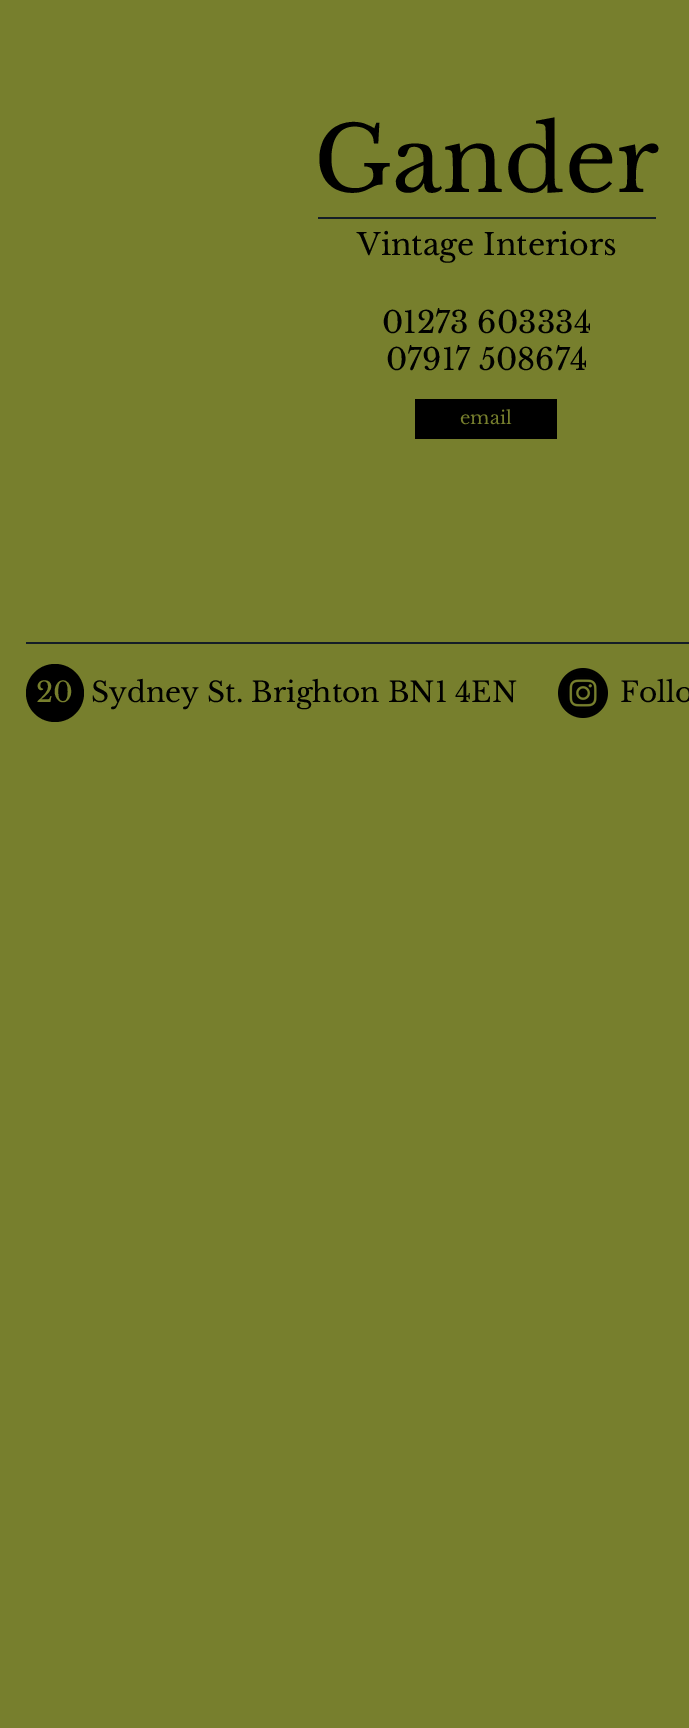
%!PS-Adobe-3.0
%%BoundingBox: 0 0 689 1728
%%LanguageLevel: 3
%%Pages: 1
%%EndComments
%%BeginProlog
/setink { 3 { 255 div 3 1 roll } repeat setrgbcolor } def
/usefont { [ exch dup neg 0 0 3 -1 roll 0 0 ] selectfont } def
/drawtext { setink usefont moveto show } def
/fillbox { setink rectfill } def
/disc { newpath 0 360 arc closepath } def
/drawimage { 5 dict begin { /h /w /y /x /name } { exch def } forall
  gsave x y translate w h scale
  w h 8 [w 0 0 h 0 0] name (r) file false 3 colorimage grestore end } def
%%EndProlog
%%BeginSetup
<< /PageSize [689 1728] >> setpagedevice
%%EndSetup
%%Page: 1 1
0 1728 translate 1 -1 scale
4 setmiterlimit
0 0 689 1728 119 127 45 fillbox
(Gander) 314 192 /LibreBaskerville-Regular 90 0 0 0 drawtext
318 217 338 2 20 29 39 fillbox
(Vintage Interiors) 357 255 /LibreBaskerville-Regular 30 0 0 0 drawtext
(01273 603334) 382 333 /LibreBaskerville-Regular 30 0 0 0 drawtext
(07917 508674) 386 370 /LibreBaskerville-Regular 30 0 0 0 drawtext
415 399 142 40 0 0 0 fillbox
(email) 460 424 /LibreBaskerville-Regular 18 119 127 45 drawtext
26 642 663 2 20 29 39 fillbox
0 0 0 setink
55 693 29 disc fill
(20) 36 702 /LibreBaskerville-Regular 28 119 127 45 drawtext
(Sydney St. Brighton BN1 4EN) 91 702 /LibreBaskerville-Regular 28 0 0 0 drawtext
(assets/img1.rgb) 558 668 50 50 drawimage
(Follo) 620 702 /LibreBaskerville-Regular 28 0 0 0 drawtext
showpage
%%EOF
